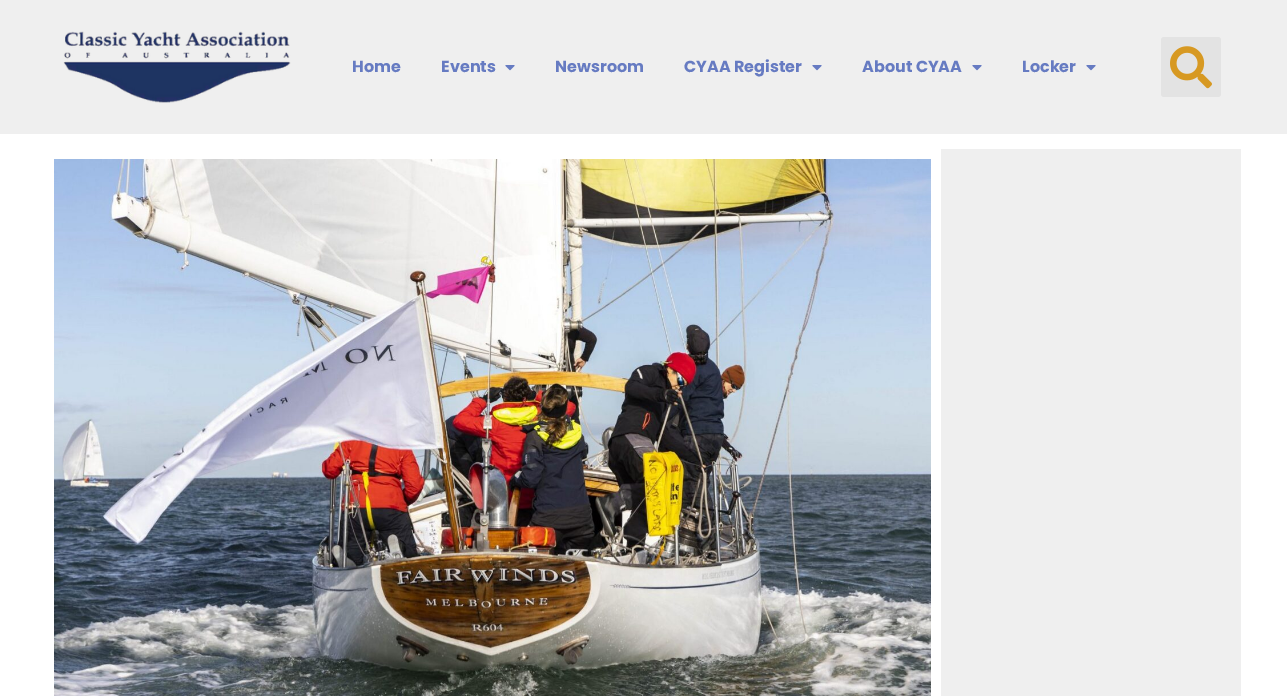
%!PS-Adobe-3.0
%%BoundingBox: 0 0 1287 696
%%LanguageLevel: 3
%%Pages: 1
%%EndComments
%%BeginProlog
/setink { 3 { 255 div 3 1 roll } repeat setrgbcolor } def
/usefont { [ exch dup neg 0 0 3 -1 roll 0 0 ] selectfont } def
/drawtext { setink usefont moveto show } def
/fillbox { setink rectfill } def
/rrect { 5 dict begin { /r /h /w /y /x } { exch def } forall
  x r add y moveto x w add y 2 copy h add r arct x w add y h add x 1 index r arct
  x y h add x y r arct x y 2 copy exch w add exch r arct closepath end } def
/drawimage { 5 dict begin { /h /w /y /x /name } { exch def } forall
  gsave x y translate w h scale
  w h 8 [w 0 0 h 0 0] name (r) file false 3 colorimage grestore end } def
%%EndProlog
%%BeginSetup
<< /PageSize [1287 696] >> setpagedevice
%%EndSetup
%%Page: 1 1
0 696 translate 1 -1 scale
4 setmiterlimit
0 0 1287 696 255 255 255 fillbox
0 0 1287 134 239 239 239 fillbox
(assets/img1.rgb) 63 31 228 72 drawimage
(Home) 352 72 /Poppins-Bold 16 102 123 194 drawtext
(Events) 441 72 /Poppins-Bold 16 102 123 194 drawtext
(assets/img2.rgb) 505 65 10 6 drawimage
(Newsroom) 555 72 /Poppins-Bold 16 102 123 194 drawtext
(CYAA Register) 684 72 /Poppins-Bold 16 102 123 194 drawtext
(assets/img2.rgb) 812 65 10 6 drawimage
(About CYAA) 862 72 /Poppins-Bold 16 102 123 194 drawtext
(assets/img2.rgb) 972 65 10 6 drawimage
(Locker) 1022 72 /Poppins-Bold 16 102 123 194 drawtext
(assets/img2.rgb) 1086 65 10 6 drawimage
227 227 227 setink
1161 37 60 60 3 rrect fill
(assets/img3.rgb) 1170 46 42 43 drawimage
(assets/img4.rgb) 54 159 877 537 drawimage
941 149 300 547 239 239 239 fillbox
showpage
%%EOF
